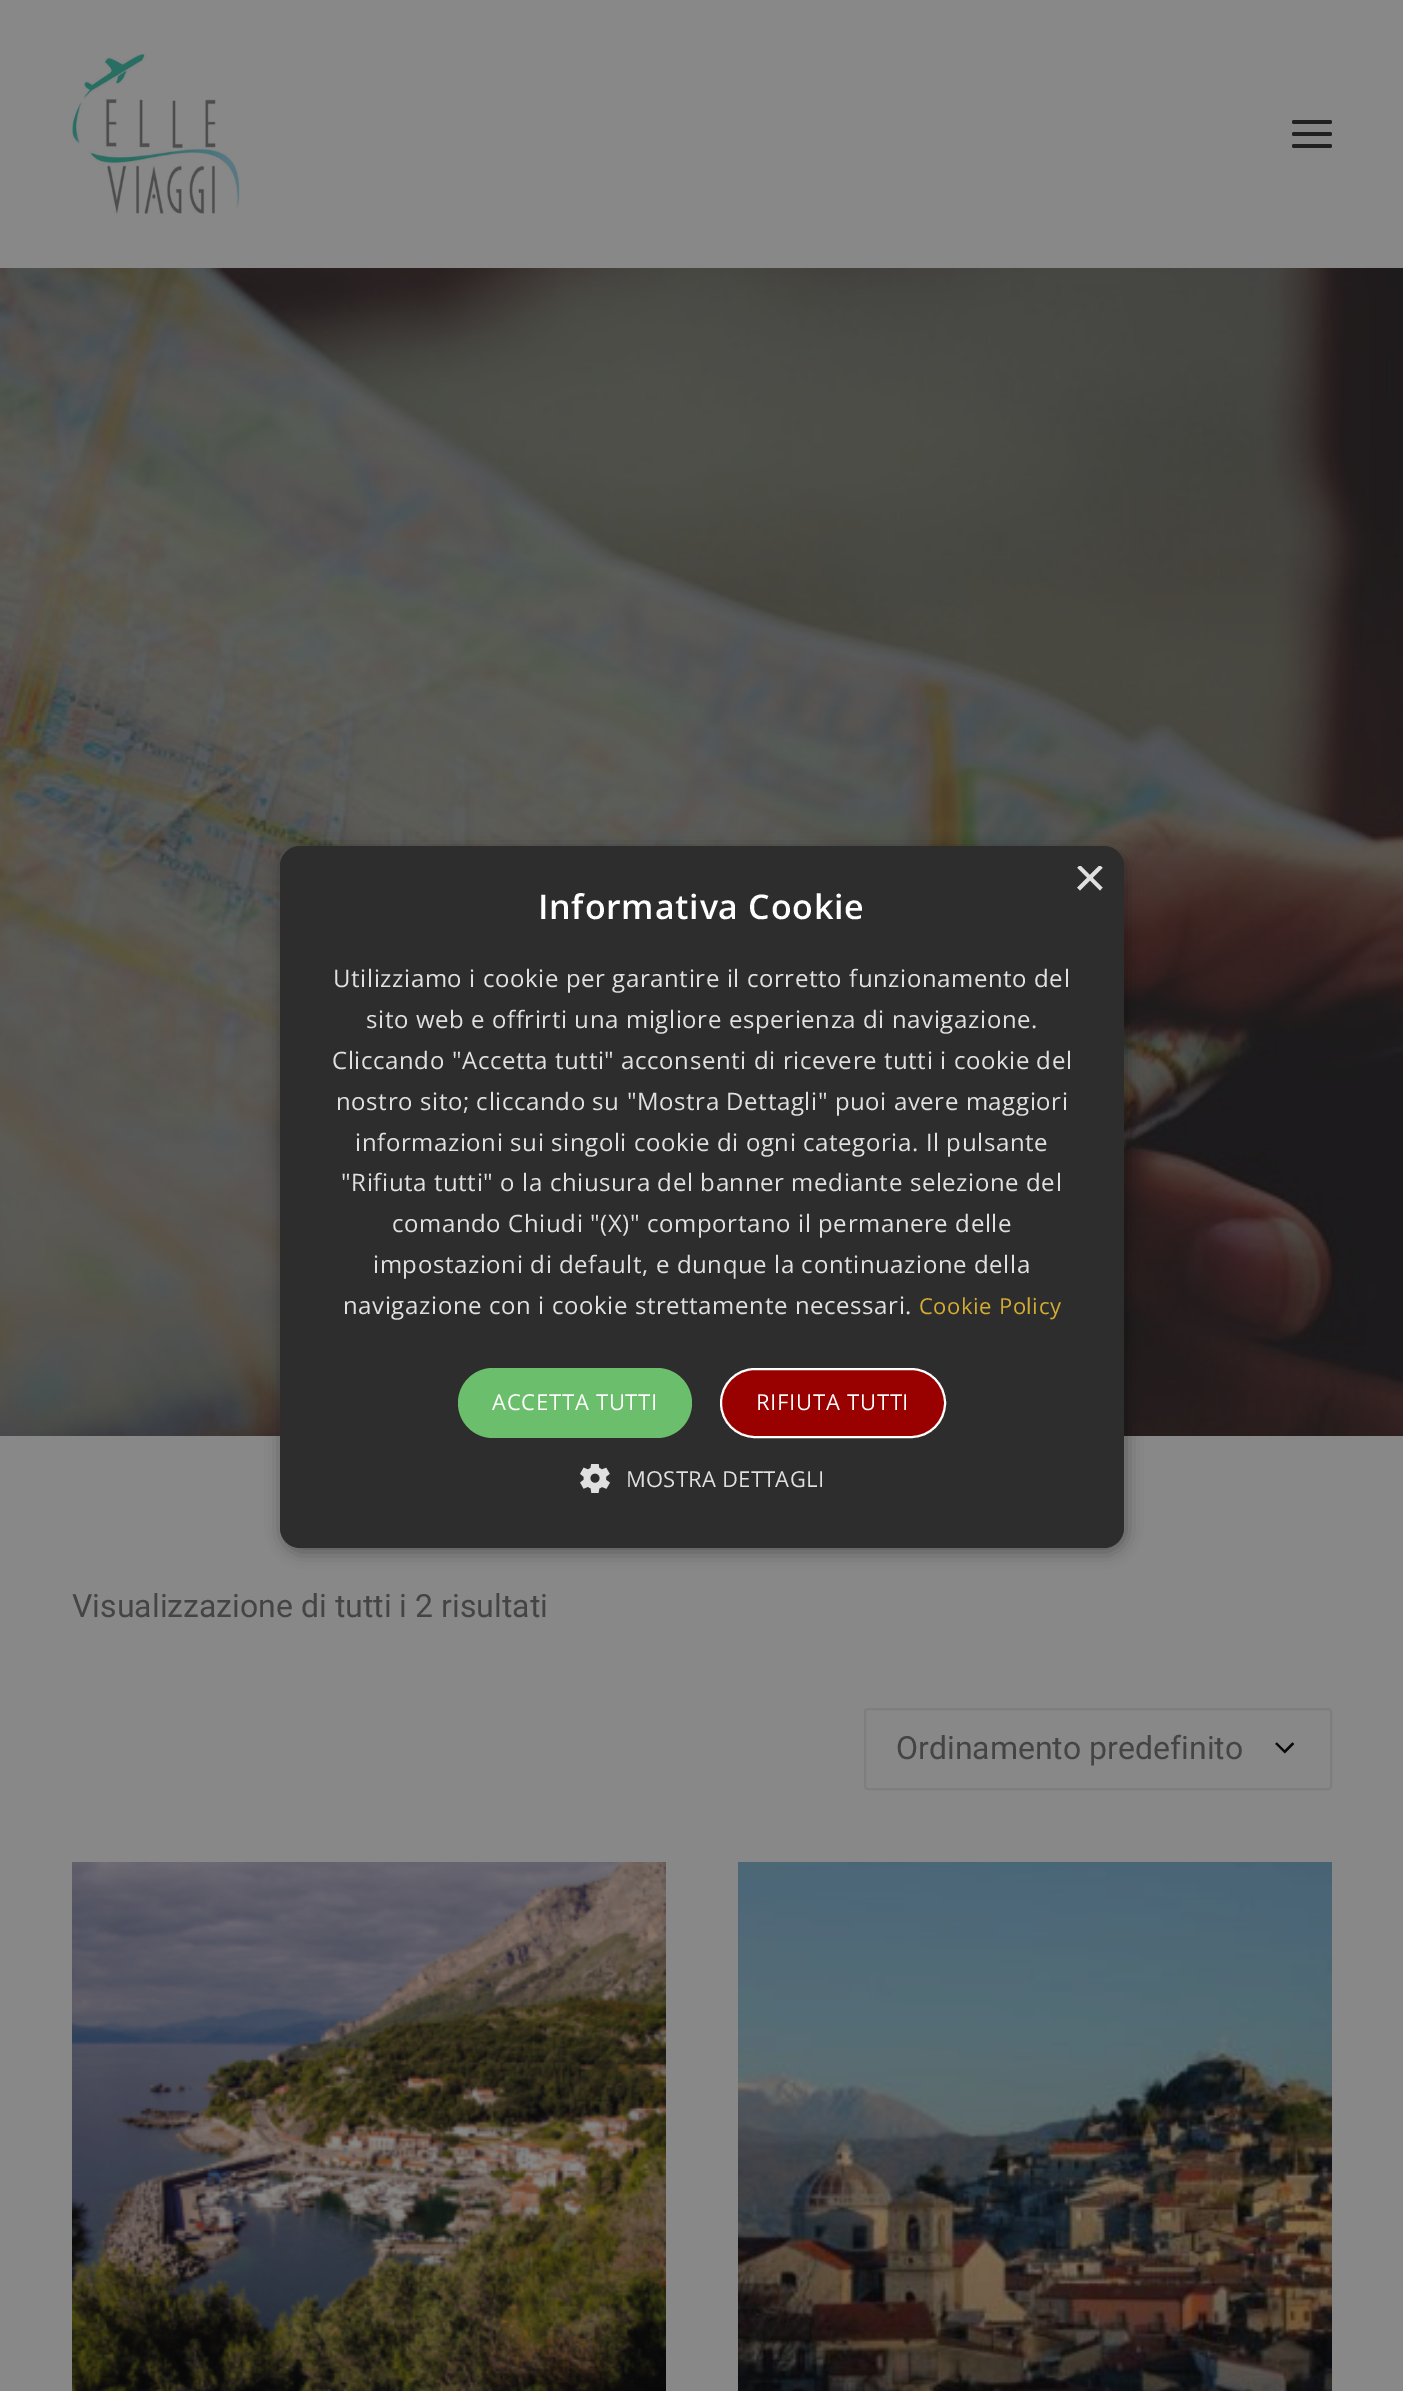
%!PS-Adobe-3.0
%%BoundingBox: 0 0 1403 2391
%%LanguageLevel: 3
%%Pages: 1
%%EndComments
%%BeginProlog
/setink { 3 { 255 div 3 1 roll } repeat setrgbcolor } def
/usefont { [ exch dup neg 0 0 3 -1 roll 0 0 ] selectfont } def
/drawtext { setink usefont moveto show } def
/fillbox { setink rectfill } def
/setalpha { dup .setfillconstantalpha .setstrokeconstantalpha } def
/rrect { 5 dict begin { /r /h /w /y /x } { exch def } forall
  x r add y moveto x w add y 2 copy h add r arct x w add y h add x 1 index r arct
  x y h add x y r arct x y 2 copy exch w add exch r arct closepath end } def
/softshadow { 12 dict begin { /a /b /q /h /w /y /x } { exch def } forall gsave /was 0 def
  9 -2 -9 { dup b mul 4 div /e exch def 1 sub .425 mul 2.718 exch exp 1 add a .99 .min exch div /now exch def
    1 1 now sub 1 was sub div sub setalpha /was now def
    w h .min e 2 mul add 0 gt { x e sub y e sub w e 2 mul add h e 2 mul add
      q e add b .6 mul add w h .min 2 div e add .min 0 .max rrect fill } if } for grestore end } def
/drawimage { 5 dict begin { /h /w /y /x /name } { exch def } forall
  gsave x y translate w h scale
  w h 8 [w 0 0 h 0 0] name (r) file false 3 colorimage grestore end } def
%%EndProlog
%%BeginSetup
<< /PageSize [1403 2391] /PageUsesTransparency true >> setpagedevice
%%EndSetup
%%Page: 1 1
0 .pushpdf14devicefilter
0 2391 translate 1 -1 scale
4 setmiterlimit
0 0 1403 2391 255 255 255 fillbox
(assets/img3.rgb) 0 268 1403 1168 drawimage
0 1436 1403 955 136 136 136 fillbox
0 0 0 setink
282 850 844 702 20 8 0.35 softshadow
45 45 45 setink
280 846 844 702 20 rrect fill
gsave
1074 866 30 30 rectclip
(×) 1073 897 /LiberationSans-Regular 58 224 224 224 drawtext
grestore
/OpenSans-SemiBold 34 usefont
255 255 255 setink
538 919 moveto 0.75 0 (Informativa Cookie) ashow
/OpenSans-Regular 24 usefont
224 224 224 setink
333 987 moveto 0.6 0 (Utilizziamo i cookie per garantire il corretto funzionamento del) ashow
366 1028 moveto 0.6 0 (sito web e offrirti una migliore esperienza di navigazione.) ashow
332 1069 moveto 0.6 0 (Cliccando "Accetta tutti" acconsenti di ricevere tutti i cookie del) ashow
336 1110 moveto 0.6 0 (nostro sito; cliccando su "Mostra Dettagli" puoi avere maggiori) ashow
355 1151 moveto 0.6 0 (informazioni sui singoli cookie di ogni categoria. Il pulsante) ashow
341 1191 moveto 0.6 0 ("Rifiuta tutti" o la chiusura del banner mediante selezione del) ashow
392 1232 moveto 0.6 0 (comando Chiudi "\(X\)" comportano il permanere delle) ashow
373 1273 moveto 0.6 0 (impostazioni di default, e dunque la continuazione della) ashow
343 1314 moveto 0.6 0 (navigazione con i cookie strettamente necessari.) ashow
/OpenSans-Regular 22 usefont
212 172 49 setink
919 1314 moveto 0.6 0 (Cookie Policy) ashow
107 190 107 setink
458 1368 234 70 35 rrect fill
255 255 255 setink
492 1410 moveto 0.75 0 (ACCETTA TUTTI) ashow
153 0 0 setink
721 1369 224 68 34 rrect gsave fill grestore
255 255 255 setink
2 setlinewidth
stroke
756 1410 moveto 0.75 0 (RIFIUTA TUTTI) ashow
(assets/img1.rgb) 580 1464 30 29 drawimage
224 224 224 setink
626 1487 moveto 0.25 0 (MOSTRA DETTAGLI) ashow
0 0 1403 268 136 136 136 fillbox
(assets/img2.rgb) 72 54 168 160 drawimage
33 33 34 setink
1292 132 40 4 2 rrect fill
1292 120 40 4 2 rrect fill
1292 144 40 4 2 rrect fill
(Visualizzazione di tutti i 2 risultati) 72 1617 /Roboto-Regular 32 68 68 68 drawtext
(assets/img4.rgb) 1275 1742 20 12 drawimage
126 126 126 setink
865 1709 466 80 3 rrect stroke
(Ordinamento predefinito) 896 1759 /Roboto-Regular 32 68 68 68 drawtext
(assets/img5.rgb) 72 1862 594 529 drawimage
(assets/img6.rgb) 738 1862 594 529 drawimage
.poppdf14devicefilter showpage
%%EOF
